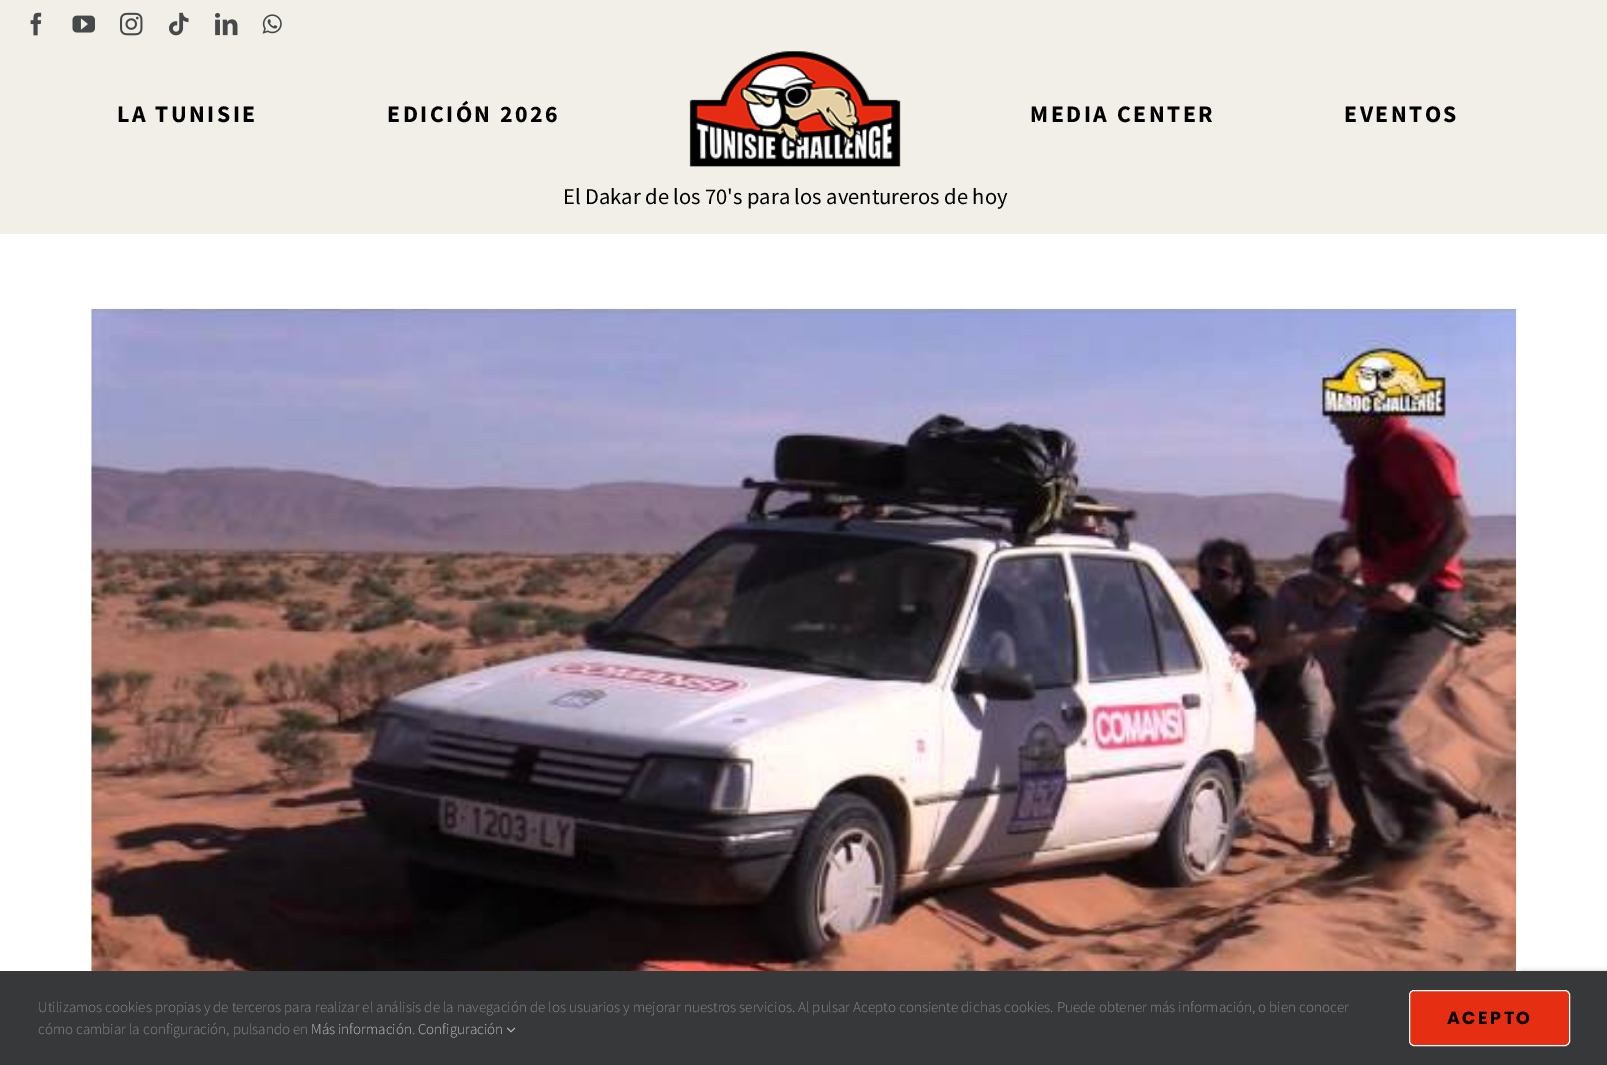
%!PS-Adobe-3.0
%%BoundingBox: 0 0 1607 1065
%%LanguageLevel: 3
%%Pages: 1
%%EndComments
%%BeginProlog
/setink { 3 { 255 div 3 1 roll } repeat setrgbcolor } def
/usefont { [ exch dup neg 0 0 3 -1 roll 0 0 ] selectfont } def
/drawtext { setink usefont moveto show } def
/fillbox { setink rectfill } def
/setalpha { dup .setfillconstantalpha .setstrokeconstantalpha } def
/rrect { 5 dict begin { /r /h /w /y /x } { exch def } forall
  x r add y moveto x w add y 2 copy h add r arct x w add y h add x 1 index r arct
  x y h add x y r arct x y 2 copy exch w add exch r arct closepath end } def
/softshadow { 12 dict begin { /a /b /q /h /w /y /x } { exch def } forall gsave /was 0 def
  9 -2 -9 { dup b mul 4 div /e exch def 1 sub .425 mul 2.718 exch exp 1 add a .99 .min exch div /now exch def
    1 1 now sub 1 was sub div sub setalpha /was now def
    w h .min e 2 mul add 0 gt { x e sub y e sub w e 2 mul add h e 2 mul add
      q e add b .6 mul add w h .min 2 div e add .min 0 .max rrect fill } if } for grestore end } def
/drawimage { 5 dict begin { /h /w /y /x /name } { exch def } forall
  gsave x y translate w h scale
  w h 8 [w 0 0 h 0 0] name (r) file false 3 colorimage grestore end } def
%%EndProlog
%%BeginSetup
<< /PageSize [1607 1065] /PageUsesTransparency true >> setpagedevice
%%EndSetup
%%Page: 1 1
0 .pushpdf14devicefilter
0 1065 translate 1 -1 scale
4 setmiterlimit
0 0 1607 1065 255 255 255 fillbox
0 0 1607 48 241 239 231 fillbox
(assets/img1.rgb) 30 12 12 24 drawimage
(assets/img2.rgb) 72 15 23 18 drawimage
(assets/img3.rgb) 120 12 23 24 drawimage
(assets/img4.rgb) 169 12 20 24 drawimage
(assets/img5.rgb) 215 13 23 23 drawimage
(assets/img6.rgb) 262 14 20 20 drawimage
0 48 1607 186 241 239 231 fillbox
/SourceSansPro-Bold 23.75 usefont
0 0 0 setink
117 122 moveto 2.5 0 (LA TUNISIE) ashow
387 122 moveto 2.5 0 (EDICIÓN 2026) ashow
(assets/img7.rgb) 689 51 212 116 drawimage
1030 122 moveto 2.5 0 (MEDIA CENTER) ashow
1344 122 moveto 2.5 0 (EVENTOS) ashow
(El Dakar de los 70's para los aventureros de hoy) 563 204 /SourceSansPro-Regular 22.5 0 0 0 drawtext
128 128 128 setink
1520 973 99 75 2.5 3 1 softshadow
(assets/img8.rgb) 91 308 1426 663 drawimage
0 971 1607 94 54 56 57 fillbox
(Utilizamos cookies propias y de terceros para realizar el análisis de la navegación de los usuarios y mejorar nuestros servicios. Al pulsar Acepto consiente dichas cookies. Puede obtener más información, o bien conocer) 38 1012 /SourceSansPro-Light 15 140 137 137 drawtext
(cómo cambiar la configuración, pulsando en) 38 1034 /SourceSansPro-Light 15 140 137 137 drawtext
(Más información) 311 1034 /SourceSansPro-Light 15 191 191 191 drawtext
(Configuración) 418 1034 /SourceSansPro-Light 15 191 191 191 drawtext
(assets/img9.rgb) 507 1027 9 6 drawimage
(.) 412 1034 /SourceSansPro-Light 15 140 137 137 drawtext
230 46 18 setink
1409.5 990.5 160 55 4.5 rrect gsave fill grestore
255 255 255 setink
stroke
/Poppins-Bold 17.5 usefont
0 0 0 setink
1447 1024 moveto 2.5 0 (ACEPTO) ashow
.poppdf14devicefilter showpage
%%EOF
